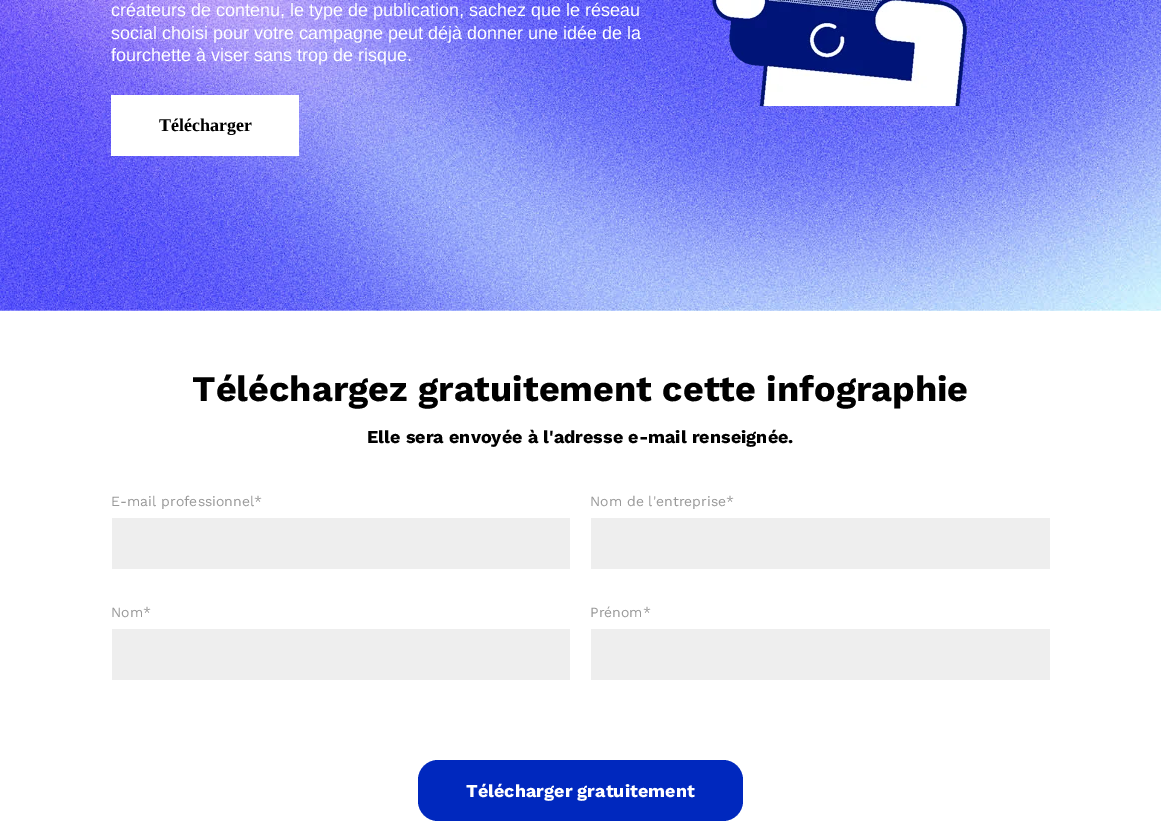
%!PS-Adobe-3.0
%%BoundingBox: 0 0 1161 838
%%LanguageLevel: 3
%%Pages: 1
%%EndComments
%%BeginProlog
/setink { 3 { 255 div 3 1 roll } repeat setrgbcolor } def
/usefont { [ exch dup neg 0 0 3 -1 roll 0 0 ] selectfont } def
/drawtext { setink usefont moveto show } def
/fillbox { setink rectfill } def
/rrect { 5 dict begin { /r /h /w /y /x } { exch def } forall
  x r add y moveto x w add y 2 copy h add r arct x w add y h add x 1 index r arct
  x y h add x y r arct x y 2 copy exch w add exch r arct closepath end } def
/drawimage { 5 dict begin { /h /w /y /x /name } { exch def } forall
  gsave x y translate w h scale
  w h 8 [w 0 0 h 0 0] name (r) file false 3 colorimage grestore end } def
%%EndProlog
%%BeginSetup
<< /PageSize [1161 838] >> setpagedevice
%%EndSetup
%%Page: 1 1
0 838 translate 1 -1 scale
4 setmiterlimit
0 0 1161 838 255 255 255 fillbox
(assets/img1.rgb) 0 0 1161 311 drawimage
(créateurs de contenu, le type de publication, sachez que le réseau) 111 16 /LiberationSans-Regular 18 255 255 255 drawtext
(social choisi pour votre campagne peut déjà donner une idée de la) 111 39 /LiberationSans-Regular 18 255 255 255 drawtext
(fourchette à viser sans trop de risque.) 111 61 /LiberationSans-Regular 18 255 255 255 drawtext
111 95 188 61 255 255 255 fillbox
(Télécharger) 159 131 /LiberationSerif-Bold 18 0 0 0 drawtext
(assets/img2.rgb) 712 0 255 106 drawimage
(Téléchargez gratuitement cette infographie) 192 401 /WorkSans-Bold 36 0 0 0 drawtext
(Elle sera envoyée à l'adresse e-mail renseignée.) 367 443 /WorkSans-Bold 18 0 0 0 drawtext
(E-mail professionnel*) 111 506 /WorkSans-Regular 14 153 153 153 drawtext
112 518 458 51 238 238 238 fillbox
(Nom de l'entreprise*) 590 506 /WorkSans-Regular 14 153 153 153 drawtext
591 518 459 51 238 238 238 fillbox
(Nom*) 111 617 /WorkSans-Regular 14 153 153 153 drawtext
112 629 458 51 238 238 238 fillbox
(Prénom*) 590 617 /WorkSans-Regular 14 153 153 153 drawtext
591 629 459 51 238 238 238 fillbox
0 40 190 setink
418 760 325 61 20 rrect fill
(Télécharger gratuitement) 466 797 /WorkSans-Bold 18 255 255 255 drawtext
showpage
%%EOF
